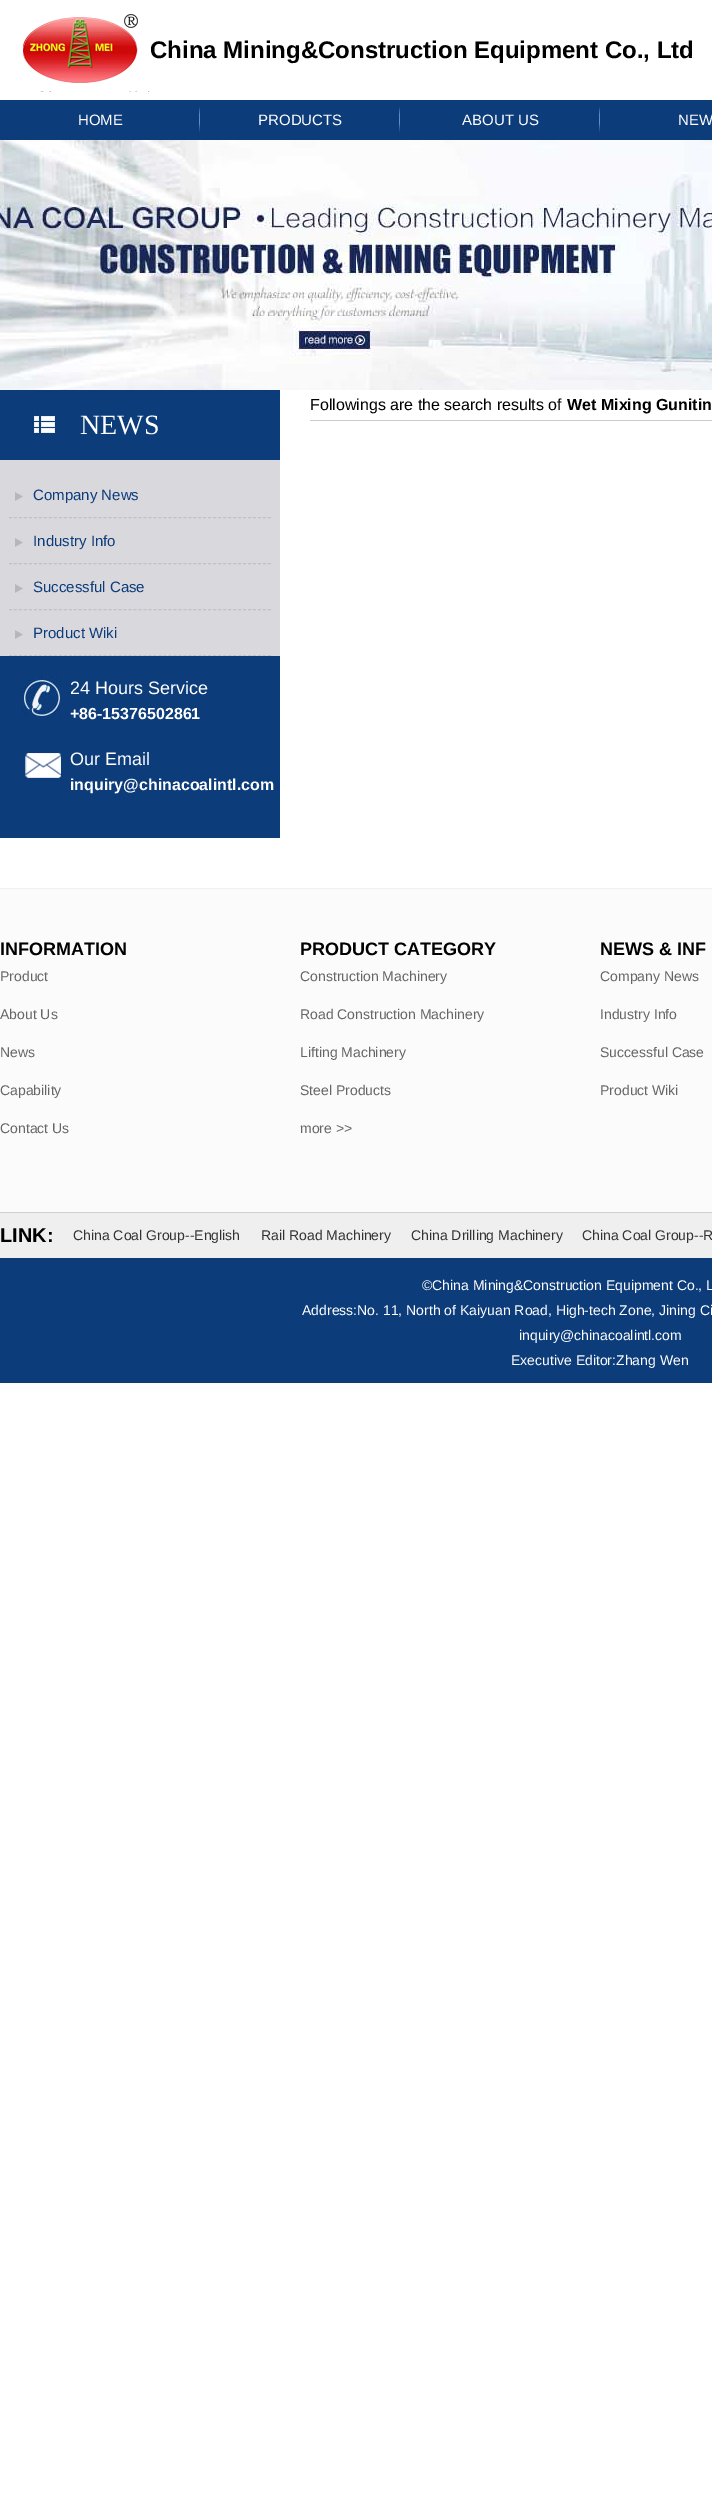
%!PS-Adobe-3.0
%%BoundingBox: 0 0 712 2500
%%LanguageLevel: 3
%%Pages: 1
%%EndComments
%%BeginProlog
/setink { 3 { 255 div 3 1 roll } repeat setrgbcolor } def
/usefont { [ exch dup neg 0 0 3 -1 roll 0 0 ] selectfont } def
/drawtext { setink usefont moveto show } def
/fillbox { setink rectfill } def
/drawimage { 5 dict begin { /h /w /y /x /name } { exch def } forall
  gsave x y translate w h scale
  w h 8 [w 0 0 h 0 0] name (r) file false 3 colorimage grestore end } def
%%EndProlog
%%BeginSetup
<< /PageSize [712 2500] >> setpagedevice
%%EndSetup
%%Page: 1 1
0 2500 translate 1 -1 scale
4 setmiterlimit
0 0 712 2500 255 255 255 fillbox
(assets/img1.rgb) 23 14 127 78 drawimage
(China Mining&Construction Equipment Co., Ltd) 150 58 /LiberationSans-Bold 24 0 0 0 drawtext
0 100 712 40 12 60 122 fillbox
(assets/img2.rgb) 199 107 1 26 drawimage
(HOME) 78 125 /LiberationSans-Regular 15 255 255 255 drawtext
(assets/img2.rgb) 399 107 1 26 drawimage
(PRODUCTS) 258 125 /LiberationSans-Regular 15 255 255 255 drawtext
(assets/img2.rgb) 599 107 1 26 drawimage
(ABOUT US) 462 125 /LiberationSans-Regular 15 255 255 255 drawtext
(NEW) 678 125 /LiberationSans-Regular 15 255 255 255 drawtext
(assets/img3.rgb) 0 140 712 250 drawimage
310 420 402 1 204 204 204 fillbox
(Followings are the search results of) 310 410 /LiberationSans-Regular 16 0 0 0 drawtext
(Wet Mixing Gunitin) 567 410 /LiberationSans-Bold 16 0 0 0 drawtext
0 460 280 196 217 216 221 fillbox
0 390 280 70 12 60 122 fillbox
(assets/img4.rgb) 30 410 30 24 drawimage
(NEWS) 80 434 /LiberationSerif-Regular 28 255 255 255 drawtext
(assets/img5.rgb) 15 492 8 9 drawimage
194 194 194 setink
[3 1.98] 0 setdash
9 517.5 moveto 271 517.5 lineto stroke
(Company News) 33 500 /LiberationSans-Regular 15 12 60 122 drawtext
(assets/img5.rgb) 15 538 8 9 drawimage
194 194 194 setink
9 563.5 moveto 271 563.5 lineto stroke
(Industry Info) 33 546 /LiberationSans-Regular 15 12 60 122 drawtext
(assets/img5.rgb) 15 584 8 9 drawimage
194 194 194 setink
9 609.5 moveto 271 609.5 lineto stroke
(Successful Case) 33 592 /LiberationSans-Regular 15 12 60 122 drawtext
(assets/img5.rgb) 15 630 8 9 drawimage
194 194 194 setink
9 655.5 moveto 271 655.5 lineto stroke
(Product Wiki) 33 638 /LiberationSans-Regular 15 12 60 122 drawtext
0 656 280 182 12 60 122 fillbox
(assets/img6.rgb) 20 676 40 40 drawimage
(24 Hours Service) 70 694 /LiberationSans-Regular 18 255 255 255 drawtext
(+86-15376502861) 70 719 /LiberationSans-Bold 16 255 255 255 drawtext
(assets/img7.rgb) 25 753 36 25 drawimage
(Our Email) 70 765 /LiberationSans-Regular 18 255 255 255 drawtext
(inquiry@chinacoalintl.com) 70 790 /LiberationSans-Bold 16 255 255 255 drawtext
0 889 712 323 251 251 251 fillbox
0 888 712 1 240 240 240 fillbox
(INFORMATION) 0 955 /LiberationSans-Bold 18 0 0 0 drawtext
(Product) 0 981 /LiberationSans-Regular 14 102 102 102 drawtext
(About Us) 0 1019 /LiberationSans-Regular 14 102 102 102 drawtext
(News) 0 1057 /LiberationSans-Regular 14 102 102 102 drawtext
(Capability) 0 1095 /LiberationSans-Regular 14 102 102 102 drawtext
(Contact Us) 0 1133 /LiberationSans-Regular 14 102 102 102 drawtext
(PRODUCT CATEGORY) 300 955 /LiberationSans-Bold 18 0 0 0 drawtext
(Construction Machinery) 300 981 /LiberationSans-Regular 14 102 102 102 drawtext
(Road Construction Machinery) 300 1019 /LiberationSans-Regular 14 102 102 102 drawtext
(Lifting Machinery) 300 1057 /LiberationSans-Regular 14 102 102 102 drawtext
(Steel Products) 300 1095 /LiberationSans-Regular 14 102 102 102 drawtext
(more >>) 300 1133 /LiberationSans-Regular 14 102 102 102 drawtext
(NEWS & INF) 600 955 /LiberationSans-Bold 18 0 0 0 drawtext
(Company News) 600 981 /LiberationSans-Regular 14 102 102 102 drawtext
(Industry Info) 600 1019 /LiberationSans-Regular 14 102 102 102 drawtext
(Successful Case) 600 1057 /LiberationSans-Regular 14 102 102 102 drawtext
(Product Wiki) 600 1095 /LiberationSans-Regular 14 102 102 102 drawtext
0 1213 712 45 239 239 239 fillbox
0 1212 712 1 208 208 208 fillbox
(LINK:) 0 1242 /LiberationSans-Bold 20 0 0 0 drawtext
(China Coal Group--English) 73 1240 /LiberationSans-Regular 14 51 51 51 drawtext
(Rail Road Machinery) 261 1240 /LiberationSans-Regular 14 51 51 51 drawtext
(China Drilling Machinery) 411 1240 /LiberationSans-Regular 14 51 51 51 drawtext
(China Coal Group--R) 582 1240 /LiberationSans-Regular 14 51 51 51 drawtext
0 1258 712 125 12 60 122 fillbox
(©China Mining&Construction Equipment Co., L) 422 1290 /LiberationSans-Regular 14 255 255 255 drawtext
(Address:No. 11, North of Kaiyuan Road, High-tech Zone, Jining Ci) 302 1315 /LiberationSans-Regular 14 255 255 255 drawtext
(inquiry@chinacoalintl.com) 519 1340 /LiberationSans-Regular 14 255 255 255 drawtext
(Executive Editor:Zhang Wen) 511 1365 /LiberationSans-Regular 14 255 255 255 drawtext
showpage
%%EOF
